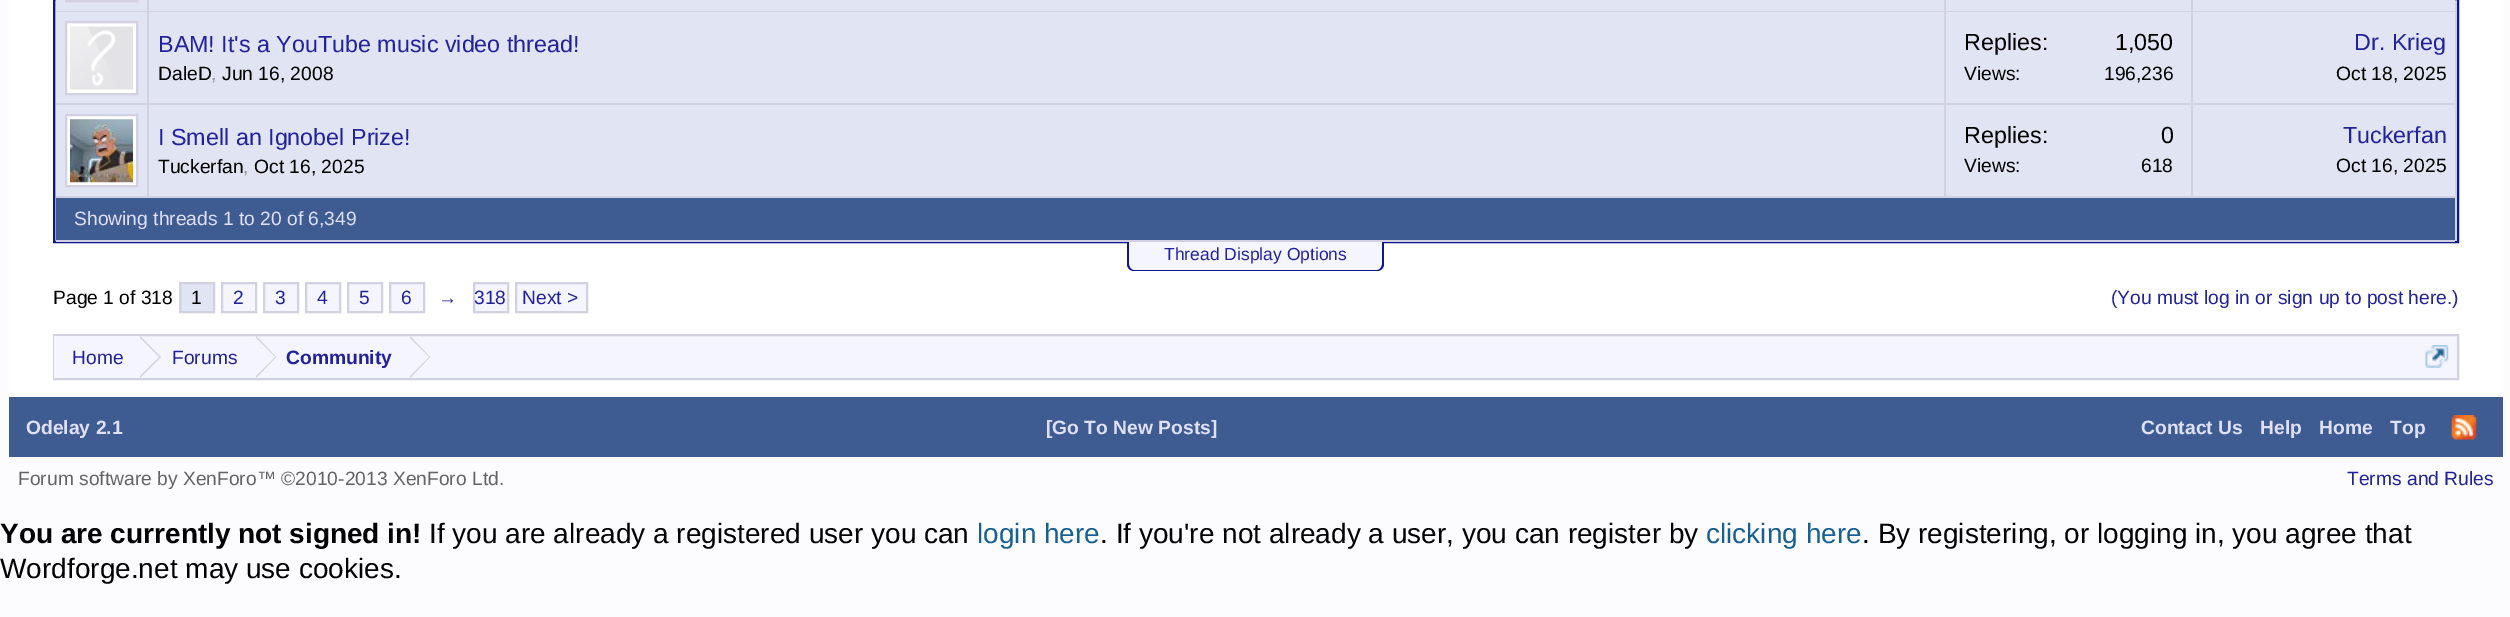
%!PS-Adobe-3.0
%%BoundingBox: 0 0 2510 617
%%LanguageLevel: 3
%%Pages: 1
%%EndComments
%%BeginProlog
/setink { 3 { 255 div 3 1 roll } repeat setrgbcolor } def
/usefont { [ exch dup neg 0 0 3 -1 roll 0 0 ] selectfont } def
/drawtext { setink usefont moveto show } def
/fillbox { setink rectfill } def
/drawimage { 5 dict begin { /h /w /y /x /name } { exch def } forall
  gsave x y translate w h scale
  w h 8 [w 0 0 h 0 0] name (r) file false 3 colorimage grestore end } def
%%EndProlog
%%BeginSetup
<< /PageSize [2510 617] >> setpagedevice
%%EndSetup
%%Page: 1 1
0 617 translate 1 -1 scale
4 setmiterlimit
0 0 2510 617 252 252 255 fillbox
9 0 2494 397 255 255 255 fillbox
209 209 225 setink
54 -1 moveto 2458 -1 lineto 2458 242 lineto 54 242 lineto closepath gsave fill grestore
11 25 140 setink
2 setlinewidth
stroke
56 0 2399 11 225 228 242 fillbox
147 0 2 11 209 209 225 fillbox
66 -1 71 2 rectstroke
2191 0 2 11 209 209 225 fillbox
1944 0 2 11 209 209 225 fillbox
56 12 2399 91 225 228 242 fillbox
147 12 2 91 209 209 225 fillbox
255 255 255 setink
66 22 moveto 137 22 lineto 137 94 lineto 66 94 lineto closepath gsave fill grestore
209 209 225 setink
stroke
(assets/img1.rgb) 70 26 63 64 drawimage
(BAM! It's a YouTube music video thread!) 158 52 /LiberationSans-Regular 23.3 34 34 156 drawtext
(DaleD) 158 80 /LiberationSans-Regular 19.25 0 0 0 drawtext
(,) 211 80 /LiberationSans-Regular 19.25 150 150 150 drawtext
(Jun 16, 2008) 222 80 /LiberationSans-Regular 19.25 0 0 0 drawtext
2191 12 2 91 209 209 225 fillbox
1944 12 2 91 209 209 225 fillbox
(Replies:) 1964 50 /LiberationSans-Regular 23.3 0 0 0 drawtext
(1,050) 2115 50 /LiberationSans-Regular 23.3 0 0 0 drawtext
(Views:) 1964 80 /LiberationSans-Regular 19.25 0 0 0 drawtext
(196,236) 2104 80 /LiberationSans-Regular 19.25 0 0 0 drawtext
(Dr. Krieg) 2354 50 /LiberationSans-Regular 23.3 34 34 156 drawtext
(Oct 18, 2025) 2336 80 /LiberationSans-Regular 19.25 0 0 0 drawtext
56 105 2399 91 225 228 242 fillbox
147 105 2 91 209 209 225 fillbox
255 255 255 setink
66 115 moveto 137 115 lineto 137 186 lineto 66 186 lineto closepath gsave fill grestore
209 209 225 setink
stroke
(assets/img2.rgb) 70 119 63 64 drawimage
(I Smell an Ignobel Prize!) 158 145 /LiberationSans-Regular 23.3 34 34 156 drawtext
(Tuckerfan) 158 173 /LiberationSans-Regular 19.25 0 0 0 drawtext
(,) 243 173 /LiberationSans-Regular 19.25 150 150 150 drawtext
(Oct 16, 2025) 254 173 /LiberationSans-Regular 19.25 0 0 0 drawtext
2191 105 2 91 209 209 225 fillbox
1944 105 2 91 209 209 225 fillbox
(Replies:) 1964 143 /LiberationSans-Regular 23.3 0 0 0 drawtext
(0) 2161 143 /LiberationSans-Regular 23.3 0 0 0 drawtext
(Views:) 1964 172 /LiberationSans-Regular 19.25 0 0 0 drawtext
(618) 2141 172 /LiberationSans-Regular 19.25 0 0 0 drawtext
(Tuckerfan) 2343 143 /LiberationSans-Regular 23.3 34 34 156 drawtext
(Oct 16, 2025) 2336 172 /LiberationSans-Regular 19.25 0 0 0 drawtext
56 198 2399 42 62 92 146 fillbox
56 241 2399 1 209 209 225 fillbox
(Showing threads 1 to 20 of 6,349) 74 225 /LiberationSans-Regular 19.25 224 224 246 drawtext
245 245 255 setink
1127 242 moveto 1384 242 lineto 1384 264 lineto 1384 268 1381 271 1377 271 curveto 1134 271 lineto 1130 271 1127 268 1127 264 curveto closepath fill
11 25 140 setink
1127 242 moveto 1384 242 lineto 1384 264 lineto 1384 268 1381 271 1377 271 curveto 1134 271 lineto 1130 271 1127 268 1127 264 curveto closepath 1129 242 moveto 1382 242 lineto 1382 264 lineto 1382 267 1380 270 1377 270 curveto 1134 270 lineto 1131 270 1129 267 1129 264 curveto closepath eofill
(Thread Display Options) 1164 260 /LiberationSans-Regular 17.5 34 34 156 drawtext
(Page 1 of 318) 53 304 /LiberationSans-Regular 19.25 0 0 0 drawtext
225 228 242 setink
180 283 moveto 214 283 lineto 214 312 lineto 180 312 lineto closepath gsave fill grestore
209 209 225 setink
stroke
(1) 191 304 /LiberationSans-Regular 19.25 0 0 0 drawtext
245 245 255 setink
222 283 moveto 256 283 lineto 256 312 lineto 222 312 lineto closepath gsave fill grestore
209 209 225 setink
stroke
(2) 233 304 /LiberationSans-Regular 19.25 34 34 156 drawtext
245 245 255 setink
264 283 moveto 298 283 lineto 298 312 lineto 264 312 lineto closepath gsave fill grestore
209 209 225 setink
stroke
(3) 275 304 /LiberationSans-Regular 19.25 34 34 156 drawtext
245 245 255 setink
306 283 moveto 340 283 lineto 340 312 lineto 306 312 lineto closepath gsave fill grestore
209 209 225 setink
stroke
(4) 317 304 /LiberationSans-Regular 19.25 34 34 156 drawtext
245 245 255 setink
348 283 moveto 382 283 lineto 382 312 lineto 348 312 lineto closepath gsave fill grestore
209 209 225 setink
stroke
(5) 359 304 /LiberationSans-Regular 19.25 34 34 156 drawtext
245 245 255 setink
390 283 moveto 424 283 lineto 424 312 lineto 390 312 lineto closepath gsave fill grestore
209 209 225 setink
stroke
(6) 401 304 /LiberationSans-Regular 19.25 34 34 156 drawtext
(→) 438 304 /LiberationSans-Regular 19.25 34 34 156 drawtext
245 245 255 setink
474 283 moveto 508 283 lineto 508 312 lineto 474 312 lineto closepath gsave fill grestore
209 209 225 setink
stroke
(318) 474 304 /LiberationSans-Regular 19.25 34 34 156 drawtext
245 245 255 setink
516 283 moveto 587 283 lineto 587 312 lineto 516 312 lineto closepath gsave fill grestore
209 209 225 setink
stroke
(Next >) 522 304 /LiberationSans-Regular 19.25 34 34 156 drawtext
(\(You must log in or sign up to post here.\)) 2111 304 /LiberationSans-Regular 19.25 34 34 156 drawtext
140 336 2317 42 245 245 255 fillbox
209 209 225 setink
54 335 2404 44 rectstroke
54 336 86 42 245 245 255 fillbox
(Home) 72 364 /LiberationSans-Regular 19.25 34 34 156 drawtext
209 209 225 setink
140 378 moveto 140 336 lineto 161 357 lineto closepath fill
245 245 255 setink
138 378 moveto 138 336 lineto 159 357 lineto closepath fill
(Forums) 172 364 /LiberationSans-Regular 19.25 34 34 156 drawtext
209 209 225 setink
256 378 moveto 256 336 lineto 276 357 lineto closepath fill
245 245 255 setink
254 378 moveto 254 336 lineto 275 357 lineto closepath fill
(Community) 286 364 /LiberationSans-Bold 19.25 34 34 156 drawtext
209 209 225 setink
410 378 moveto 410 336 lineto 430 357 lineto closepath fill
245 245 255 setink
408 378 moveto 408 336 lineto 429 357 lineto closepath fill
(assets/img3.rgb) 2425 345 24 23 drawimage
9 397 2494 60 62 92 146 fillbox
(Odelay 2.1) 26 434 /LiberationSans-Bold 19.25 224 224 246 drawtext
([Go To New Posts]) 1046 434 /LiberationSans-Bold 19.25 224 224 246 drawtext
(Contact Us) 2141 434 /LiberationSans-Bold 19.25 224 224 246 drawtext
(Help) 2260 434 /LiberationSans-Bold 19.25 224 224 246 drawtext
(Home) 2319 434 /LiberationSans-Bold 19.25 224 224 246 drawtext
(Top) 2390 434 /LiberationSans-Bold 19.25 224 224 246 drawtext
(assets/img4.rgb) 2451 415 26 25 drawimage
(Forum software by XenForo™ ©2010-2013 XenForo Ltd.) 18 485 /LiberationSans-Regular 19.25 100 100 100 drawtext
(Terms and Rules) 2347 485 /LiberationSans-Regular 19.25 34 34 156 drawtext
(You are currently not signed in!) 0 543 /LiberationSans-Bold 28 0 0 0 drawtext
(If you are already a registered user you can) 429 543 /LiberationSans-Regular 28 0 0 0 drawtext
(login here) 977 543 /LiberationSans-Regular 28 23 96 147 drawtext
(. If you're not already a user, you can register by) 1100 543 /LiberationSans-Regular 28 0 0 0 drawtext
(clicking here) 1706 543 /LiberationSans-Regular 28 23 96 147 drawtext
(. By registering, or logging in, you agree that) 1862 543 /LiberationSans-Regular 28 0 0 0 drawtext
(Wordforge.net may use cookies.) 0 578 /LiberationSans-Regular 28 0 0 0 drawtext
showpage
%%EOF
